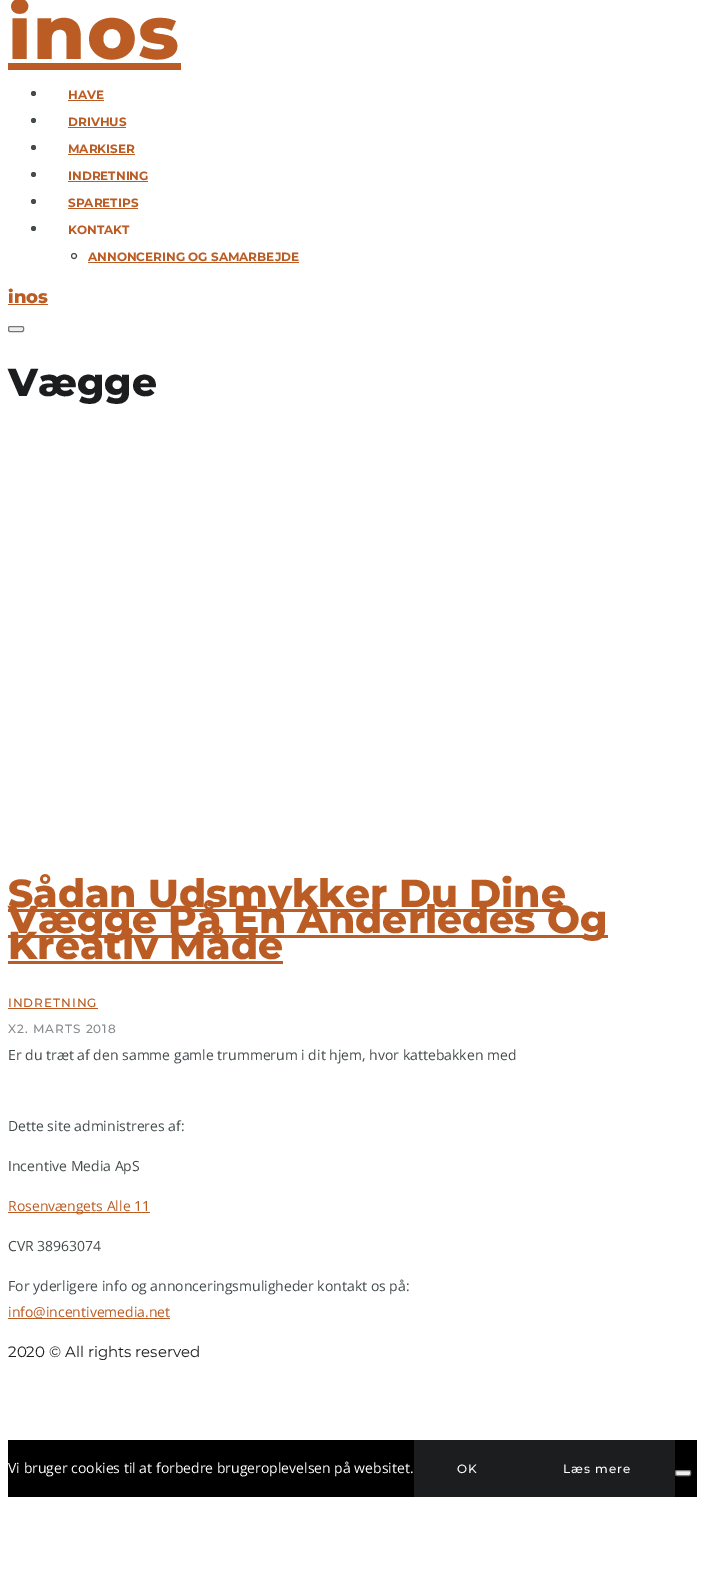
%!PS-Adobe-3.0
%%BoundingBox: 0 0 705 1571
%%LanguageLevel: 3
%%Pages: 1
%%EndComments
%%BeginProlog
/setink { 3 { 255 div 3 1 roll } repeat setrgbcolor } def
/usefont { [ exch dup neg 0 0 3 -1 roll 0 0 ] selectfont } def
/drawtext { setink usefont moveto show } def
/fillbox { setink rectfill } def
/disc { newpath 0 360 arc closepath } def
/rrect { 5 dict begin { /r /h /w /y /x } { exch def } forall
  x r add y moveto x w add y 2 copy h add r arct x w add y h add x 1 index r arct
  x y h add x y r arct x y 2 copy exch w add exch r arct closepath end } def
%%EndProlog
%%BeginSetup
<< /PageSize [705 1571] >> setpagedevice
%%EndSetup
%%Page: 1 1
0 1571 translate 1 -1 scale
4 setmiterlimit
0 0 705 1571 255 255 255 fillbox
/Montserrat-ExtraBold 75 usefont
186 92 35 setink
8 59 moveto 1.5 0 (inos) ashow
8 63 173 7 186 92 35 fillbox
68 75 77 setink
33.5 93.5 2.5 disc fill
(HAVE) 68 99 /Montserrat-Bold 12 186 92 35 drawtext
68 100 36 1 186 92 35 fillbox
68 75 77 setink
33.5 120.5 2.5 disc fill
(DRIVHUS) 68 126 /Montserrat-Bold 12 186 92 35 drawtext
68 127 58 1 186 92 35 fillbox
68 75 77 setink
33.5 147.5 2.5 disc fill
(MARKISER) 68 153 /Montserrat-Bold 12 186 92 35 drawtext
68 154 67 1 186 92 35 fillbox
68 75 77 setink
33.5 174.5 2.5 disc fill
(INDRETNING) 68 180 /Montserrat-Bold 12 186 92 35 drawtext
68 181 80 1 186 92 35 fillbox
68 75 77 setink
33.5 201.5 2.5 disc fill
(SPARETIPS) 68 207 /Montserrat-Bold 12 186 92 35 drawtext
68 208 70 1 186 92 35 fillbox
68 75 77 setink
33.5 228.5 2.5 disc fill
(KONTAKT) 68 234 /Montserrat-Bold 12 186 92 35 drawtext
68 75 77 setink
74 256 2.5 disc stroke
(ANNONCERING OG SAMARBEJDE) 88 261 /Montserrat-Bold 12 186 92 35 drawtext
88 262 211 1 186 92 35 fillbox
(inos) 8 303 /Montserrat-ExtraBold 18 186 92 35 drawtext
8 304 40 1 186 92 35 fillbox
239 239 239 setink
8.5 326.5 15 5 1.5 rrect gsave fill grestore
118 118 118 setink
stroke
(Vægge) 8 396 /Montserrat-ExtraBold 39 28 29 31 drawtext
8 909 558 3 186 92 35 fillbox
(Sådan Udsmykker Du Dine) 8 907 /Montserrat-ExtraBold 39 186 92 35 drawtext
8 935 600 3 186 92 35 fillbox
(Vægge På En Anderledes Og) 8 933 /Montserrat-ExtraBold 39 186 92 35 drawtext
(Kreativ Måde) 8 959 /Montserrat-ExtraBold 39 186 92 35 drawtext
8 961 275 3 186 92 35 fillbox
/Montserrat-Medium 12 usefont
8 1007 moveto 1 0 (INDRETNING) ashow
8 1008 90 1 186 92 35 fillbox
136 140 142 setink
8 1033 moveto 1 0 (X2. MARTS 2018) ashow
(Er du træt af den samme gamle trummerum i dit hjem, hvor kattebakken med) 8 1060 /OpenSans-Regular 14 68 75 77 drawtext
(Dette site administreres af:) 8 1131 /OpenSans-Regular 14 68 75 77 drawtext
(Incentive Media ApS) 8 1171 /OpenSans-Regular 14 68 75 77 drawtext
8 1212 142 1 186 92 35 fillbox
(Rosenvængets Alle 11) 8 1211 /OpenSans-Regular 14 186 92 35 drawtext
(CVR 38963074) 8 1251 /OpenSans-Regular 14 68 75 77 drawtext
(For yderligere info og annonceringsmuligheder kontakt os på:) 8 1291 /OpenSans-Regular 14 68 75 77 drawtext
8 1318 162 1 186 92 35 fillbox
(info@incentivemedia.net) 8 1317 /OpenSans-Regular 14 186 92 35 drawtext
(2020 © All rights reserved) 8 1357 /Montserrat-Regular 15 28 29 31 drawtext
8 1440 689 57 0 0 0 fillbox
(Vi bruger cookies til at forbedre brugeroplevelsen på websitet.) 8 1473 /OpenSans-Regular 14 255 255 255 drawtext
414 1440 261 57 28 29 31 fillbox
/Montserrat-Medium 12 usefont
255 255 255 setink
457 1473 moveto 1 0 (OK) ashow
563 1473 moveto 1 0 (Læs mere) ashow
239 239 239 setink
675.5 1470.5 15 5 1.5 rrect gsave fill grestore
118 118 118 setink
stroke
showpage
%%EOF
